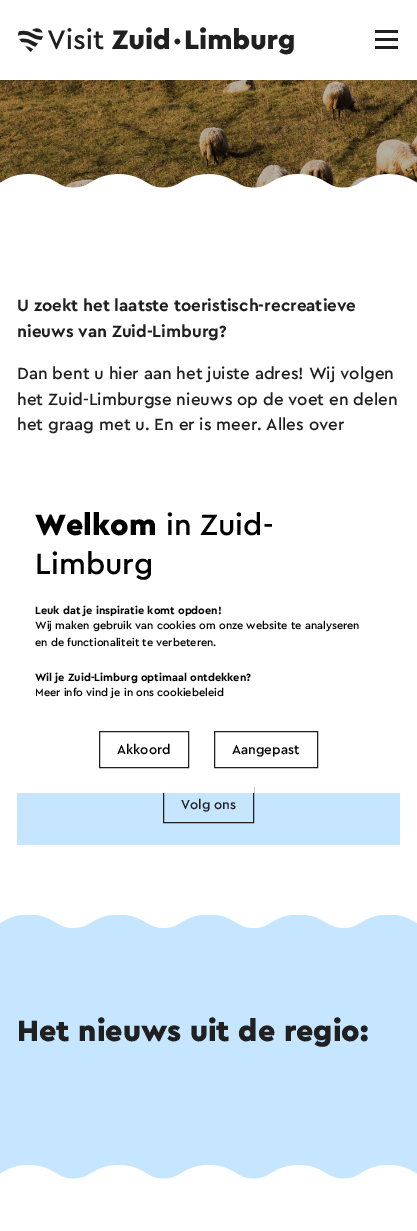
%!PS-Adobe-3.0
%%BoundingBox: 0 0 417 1231
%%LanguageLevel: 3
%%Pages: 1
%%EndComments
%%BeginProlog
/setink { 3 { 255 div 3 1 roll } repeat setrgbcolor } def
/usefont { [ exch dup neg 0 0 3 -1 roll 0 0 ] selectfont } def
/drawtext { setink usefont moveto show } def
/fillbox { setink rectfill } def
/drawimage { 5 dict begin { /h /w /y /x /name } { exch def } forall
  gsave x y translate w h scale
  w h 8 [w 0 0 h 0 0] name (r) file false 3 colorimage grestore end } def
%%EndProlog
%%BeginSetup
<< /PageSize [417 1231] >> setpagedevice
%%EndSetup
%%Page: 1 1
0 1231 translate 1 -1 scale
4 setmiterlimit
0 0 417 1231 255 255 255 fillbox
(assets/img1.rgb) 18 28 25 24 drawimage
(assets/img2.rgb) 48 27 246 28 drawimage
375 30 23 3 32 32 32 fillbox
375 38 23 3 32 32 32 fillbox
375 46 23 3 32 32 32 fillbox
(assets/img3.rgb) 0 80 417 108 drawimage
(assets/img4.rgb) 0 174 417 14 drawimage
(U zoekt het laatste toeristisch-recreatieve) 17 311 /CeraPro-Bold 17 32 32 32 drawtext
(nieuws van Zuid-Limburg?) 17 337 /CeraPro-Bold 17 32 32 32 drawtext
(Dan bent u hier aan het juiste adres! Wij volgen) 17 379 /CeraPro-Medium 17 32 32 32 drawtext
(het Zuid-Limburgse nieuws op de voet en delen) 17 405 /CeraPro-Medium 17 32 32 32 drawtext
(het graag met u. En er is meer. Alles over) 17 430 /CeraPro-Medium 17 32 32 32 drawtext
17 793 383 52 198 230 255 fillbox
32 32 32 setink
163.5 787.5 90 35 rectstroke
(Volg ons) 181 809 /CeraPro-Medium 13.5 32 32 32 drawtext
0 915 417 264 198 230 255 fillbox
(assets/img5.rgb) 0 915 417 13 drawimage
(Het nieuws uit de regio:) 17 1041 /CeraPro-Black 30.6 32 32 32 drawtext
(assets/img6.rgb) 0 1165 417 14 drawimage
163 787 91 6 255 255 255 fillbox
(Welkom) 35 535 /CeraPro-Black 30.6 0 0 0 drawtext
(in Zuid-) 166 535 /CeraPro-Medium 30.6 0 0 0 drawtext
(Limburg) 35 574 /CeraPro-Medium 30.6 0 0 0 drawtext
(Leuk dat je inspiratie komt opdoen!) 35 614 /CeraPro-Bold 11.05 0 0 0 drawtext
(Wij maken gebruik van cookies om onze website te analyseren) 35 629 /CeraPro-Medium 11.05 0 0 0 drawtext
(en de functionaliteit te verbeteren.) 35 646 /CeraPro-Medium 11.05 0 0 0 drawtext
(Wil je Zuid-Limburg optimaal ontdekken?) 35 681 /CeraPro-Bold 11.05 0 0 0 drawtext
(Meer info vind je in ons cookiebeleid) 35 696 /CeraPro-Medium 11.05 0 0 0 drawtext
32 32 32 setink
99.5 731.5 89 36 rectstroke
(Akkoord) 117 754 /CeraPro-Medium 13.5 0 0 0 drawtext
32 32 32 setink
214.5 731.5 103 36 rectstroke
(Aangepast) 232 754 /CeraPro-Medium 13.5 0 0 0 drawtext
showpage
%%EOF
